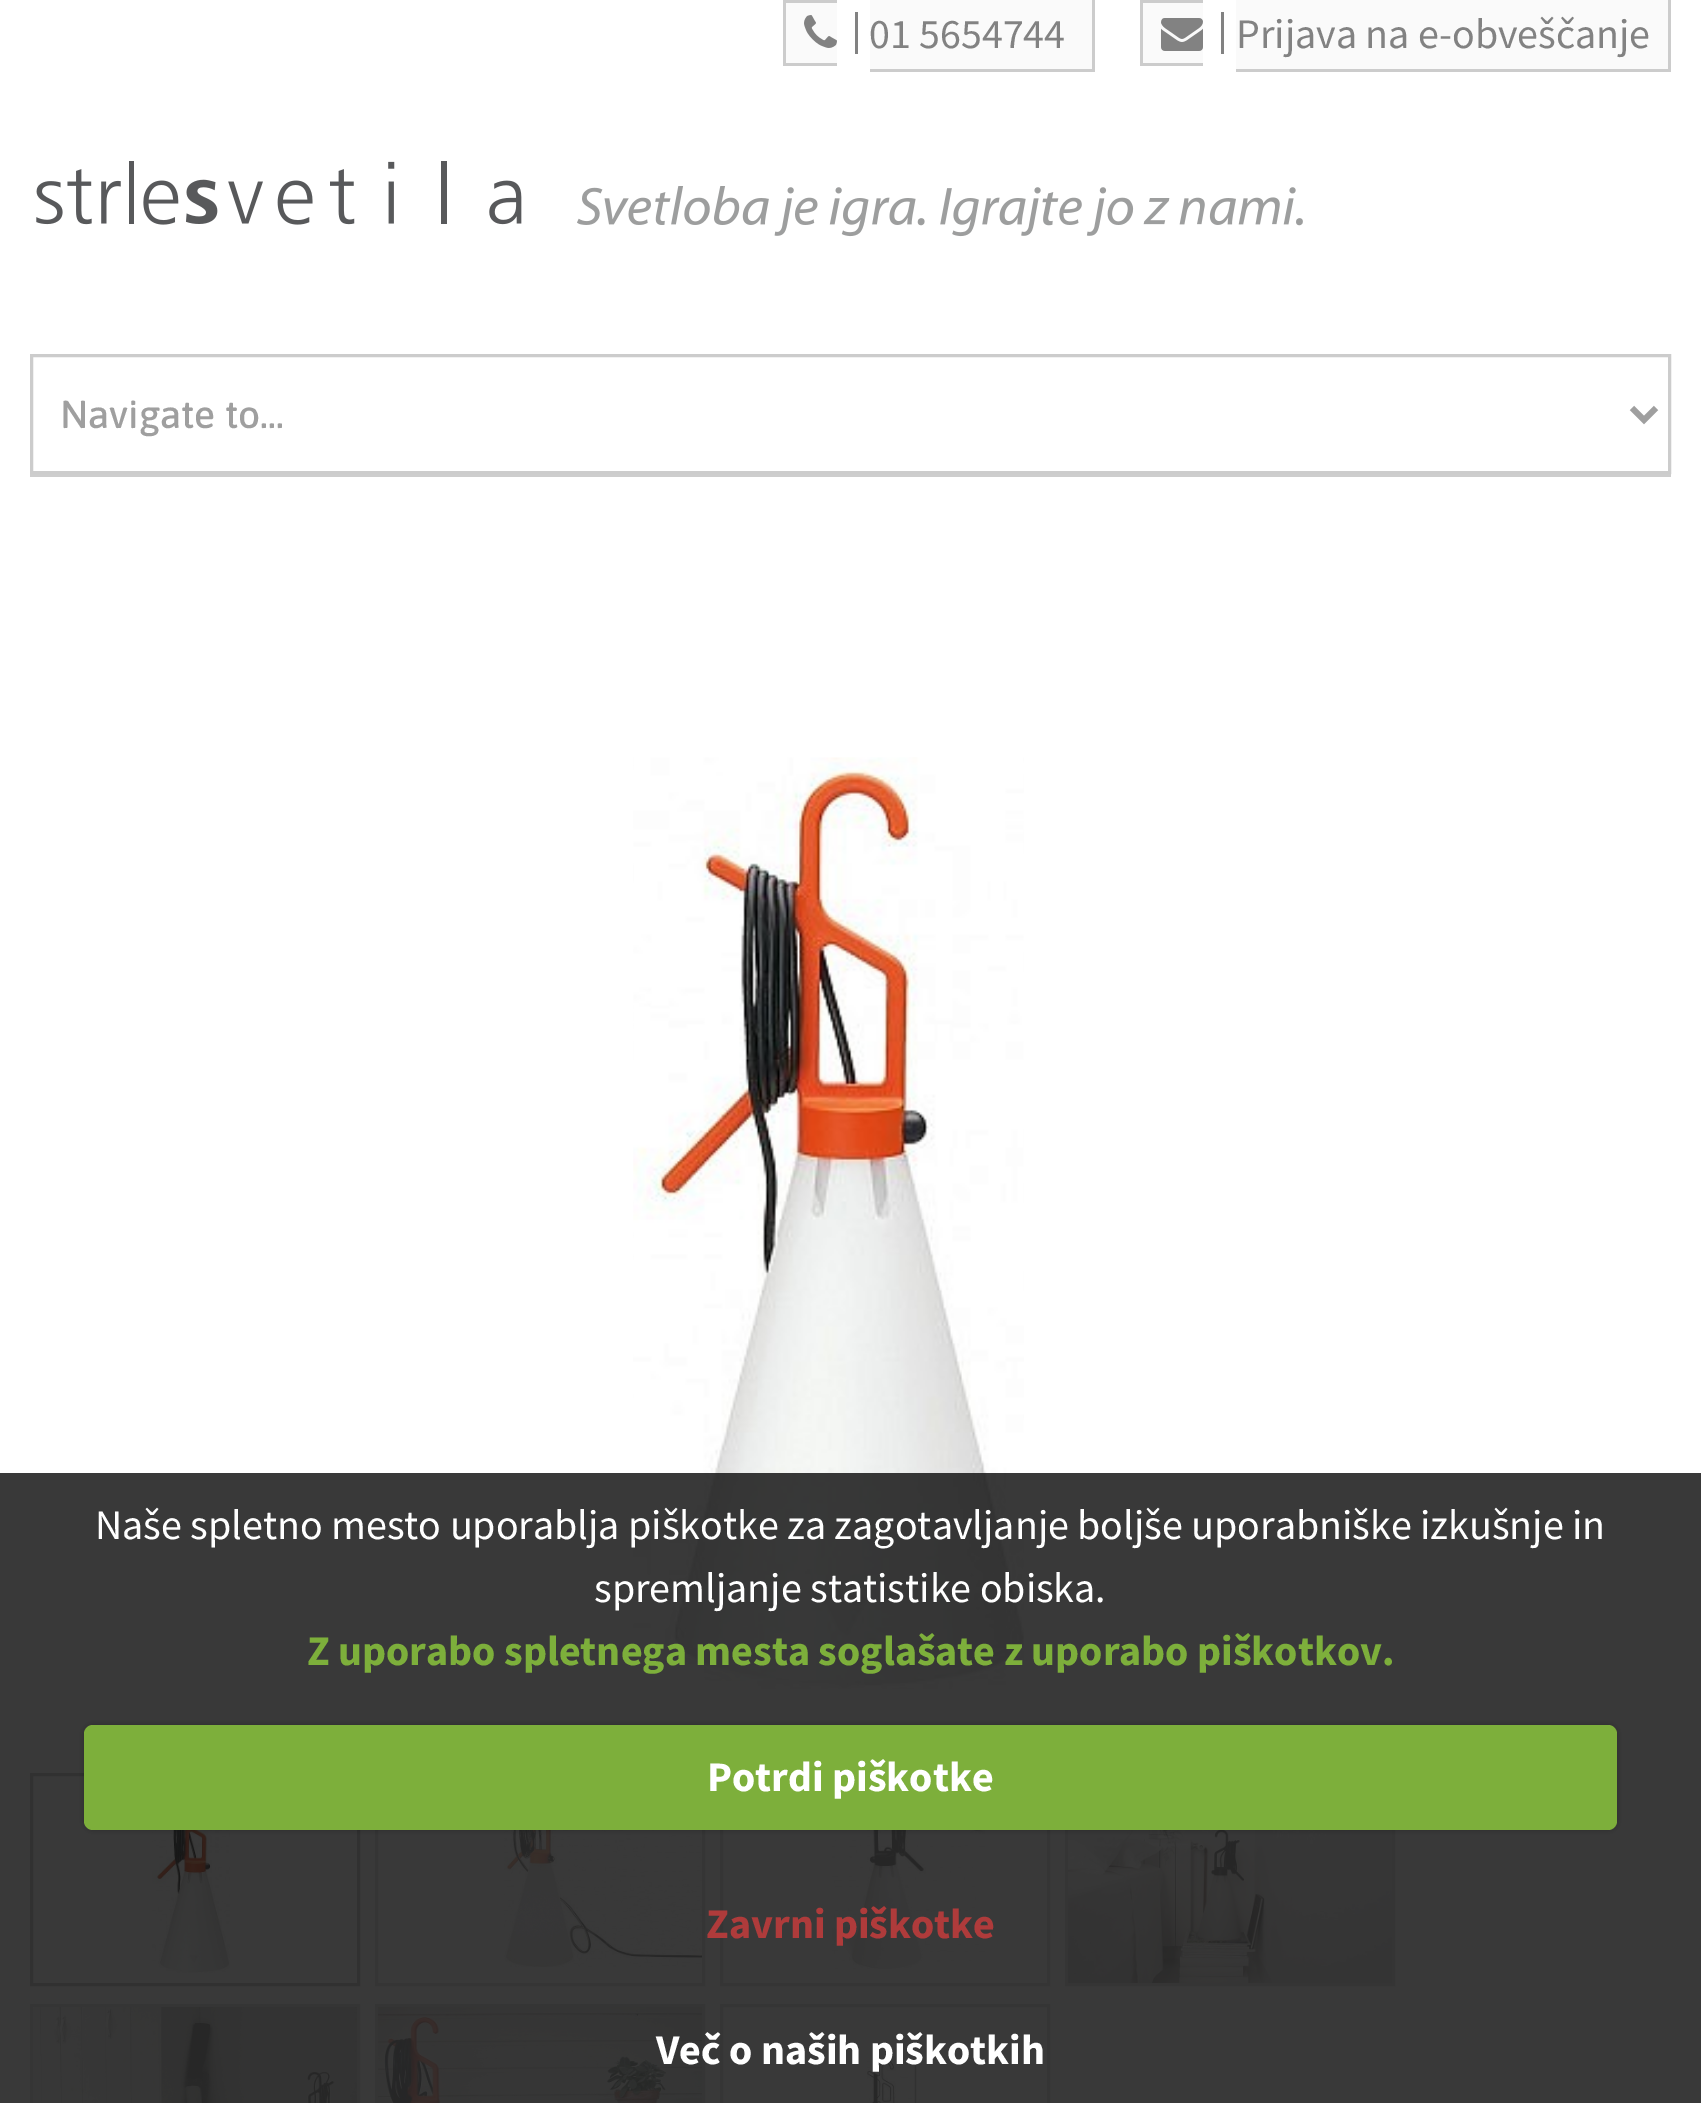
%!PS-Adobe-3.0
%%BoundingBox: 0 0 1701 2103
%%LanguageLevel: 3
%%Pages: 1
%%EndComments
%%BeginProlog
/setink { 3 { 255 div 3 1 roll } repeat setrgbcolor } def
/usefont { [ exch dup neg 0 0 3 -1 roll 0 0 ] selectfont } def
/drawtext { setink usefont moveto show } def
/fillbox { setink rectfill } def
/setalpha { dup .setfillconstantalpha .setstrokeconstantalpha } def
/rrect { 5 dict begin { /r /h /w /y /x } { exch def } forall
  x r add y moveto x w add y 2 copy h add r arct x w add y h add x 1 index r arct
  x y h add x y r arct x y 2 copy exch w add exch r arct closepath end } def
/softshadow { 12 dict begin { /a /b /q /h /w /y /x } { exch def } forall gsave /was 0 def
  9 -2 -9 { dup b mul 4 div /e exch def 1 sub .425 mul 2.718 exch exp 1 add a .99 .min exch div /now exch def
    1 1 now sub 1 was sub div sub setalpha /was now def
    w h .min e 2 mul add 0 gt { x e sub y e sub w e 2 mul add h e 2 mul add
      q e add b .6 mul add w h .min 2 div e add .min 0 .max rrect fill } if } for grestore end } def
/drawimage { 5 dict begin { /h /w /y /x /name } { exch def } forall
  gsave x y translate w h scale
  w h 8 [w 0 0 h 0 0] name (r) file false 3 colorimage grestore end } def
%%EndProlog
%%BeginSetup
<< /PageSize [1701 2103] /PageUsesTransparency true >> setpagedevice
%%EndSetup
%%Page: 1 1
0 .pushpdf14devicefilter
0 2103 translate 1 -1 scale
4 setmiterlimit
0 0 1701 2103 255 255 255 fillbox
786 3 51 60 250 250 250 fillbox
783 0 54 3 204 204 204 fillbox
783 63 54 3 204 204 204 fillbox
783 0 3 66 204 204 204 fillbox
870 0 222 69 250 250 250 fillbox
870 69 195 3 204 204 204 fillbox
1092 0 3 72 204 204 204 fillbox
1065 69 30 3 204 204 204 fillbox
855 12 3 42 130 130 130 fillbox
(assets/img1.rgb) 804 15 33 33 drawimage
(01 5654744) 869 48 /SourceSansPro-Regular 42 130 130 130 drawtext
1143 3 60 60 250 250 250 fillbox
1140 0 63 3 204 204 204 fillbox
1140 63 63 3 204 204 204 fillbox
1140 0 3 66 204 204 204 fillbox
1236 0 432 69 250 250 250 fillbox
1668 0 3 72 204 204 204 fillbox
1236 69 435 3 204 204 204 fillbox
1221 12 3 42 130 130 130 fillbox
(assets/img2.rgb) 1161 18 42 33 drawimage
(Prijava na e-obveščanje) 1236 48 /SourceSansPro-Regular 42 130 130 130 drawtext
(assets/img3.rgb) 36 161 486 64 drawimage
(assets/img4.rgb) 577 186 726 51 drawimage
30 474 1641 3 205 205 205 fillbox
204 204 204 setink
3 setlinewidth
31.5 355.5 1638 117 rectstroke
159 159 159 setink
6 setlinewidth
1632 408 moveto 1644 420 lineto 1656 408 lineto stroke
(Navigate to...) 60 428 /Asap-Medium 39 159 159 159 drawtext
(assets/img5.rgb) 633 757 391 932 drawimage
206 205 204 setink
3 setlinewidth
31.5 1774.5 327 210 rectstroke
(assets/img6.rgb) 152 1830 78 143 drawimage
231 230 230 setink
376.5 1774.5 327 210 rectstroke
(assets/img7.rgb) 504 1830 198 137 drawimage
721.5 1774.5 327 210 rectstroke
(assets/img8.rgb) 832 1830 153 139 drawimage
1066.5 1774.5 327 210 rectstroke
(assets/img9.rgb) 1068 1830 324 153 drawimage
31.5 2005.5 327 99 rectstroke
(assets/img10.rgb) 33 2007 324 96 drawimage
376.5 2005.5 327 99 rectstroke
(assets/img11.rgb) 378 2007 324 96 drawimage
721.5 2005.5 327 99 rectstroke
(assets/img12.rgb) 867 2060 53 43 drawimage
0.85 setalpha
0 1473 1701 630 22 22 22 fillbox
1 setalpha
(Naše spletno mesto uporablja piškotke za zagotavljanje boljše uporabniške izkušnje in) 95 1539 /SourceSansPro-Regular 42 255 255 255 drawtext
(spremljanje statistike obiska.) 594 1602 /SourceSansPro-Regular 42 255 255 255 drawtext
(Z uporabo spletnega mesta soglašate z uporabo piškotkov.) 307 1665 /SourceSansPro-Bold 42 125 175 59 drawtext
0 0 0 setink
84 1725 1533 105 9 3 0.25 softshadow
125 175 59 setink
84 1725 1533 105 9 rrect fill
(Potrdi piškotke) 707 1791 /SourceSansPro-Bold 42 255 255 255 drawtext
(Zavrni piškotke) 706 1938 /SourceSansPro-Bold 42 175 59 59 drawtext
(Več o naših piškotkih) 656 2064 /SourceSansPro-Bold 42 255 255 255 drawtext
.poppdf14devicefilter showpage
%%EOF
